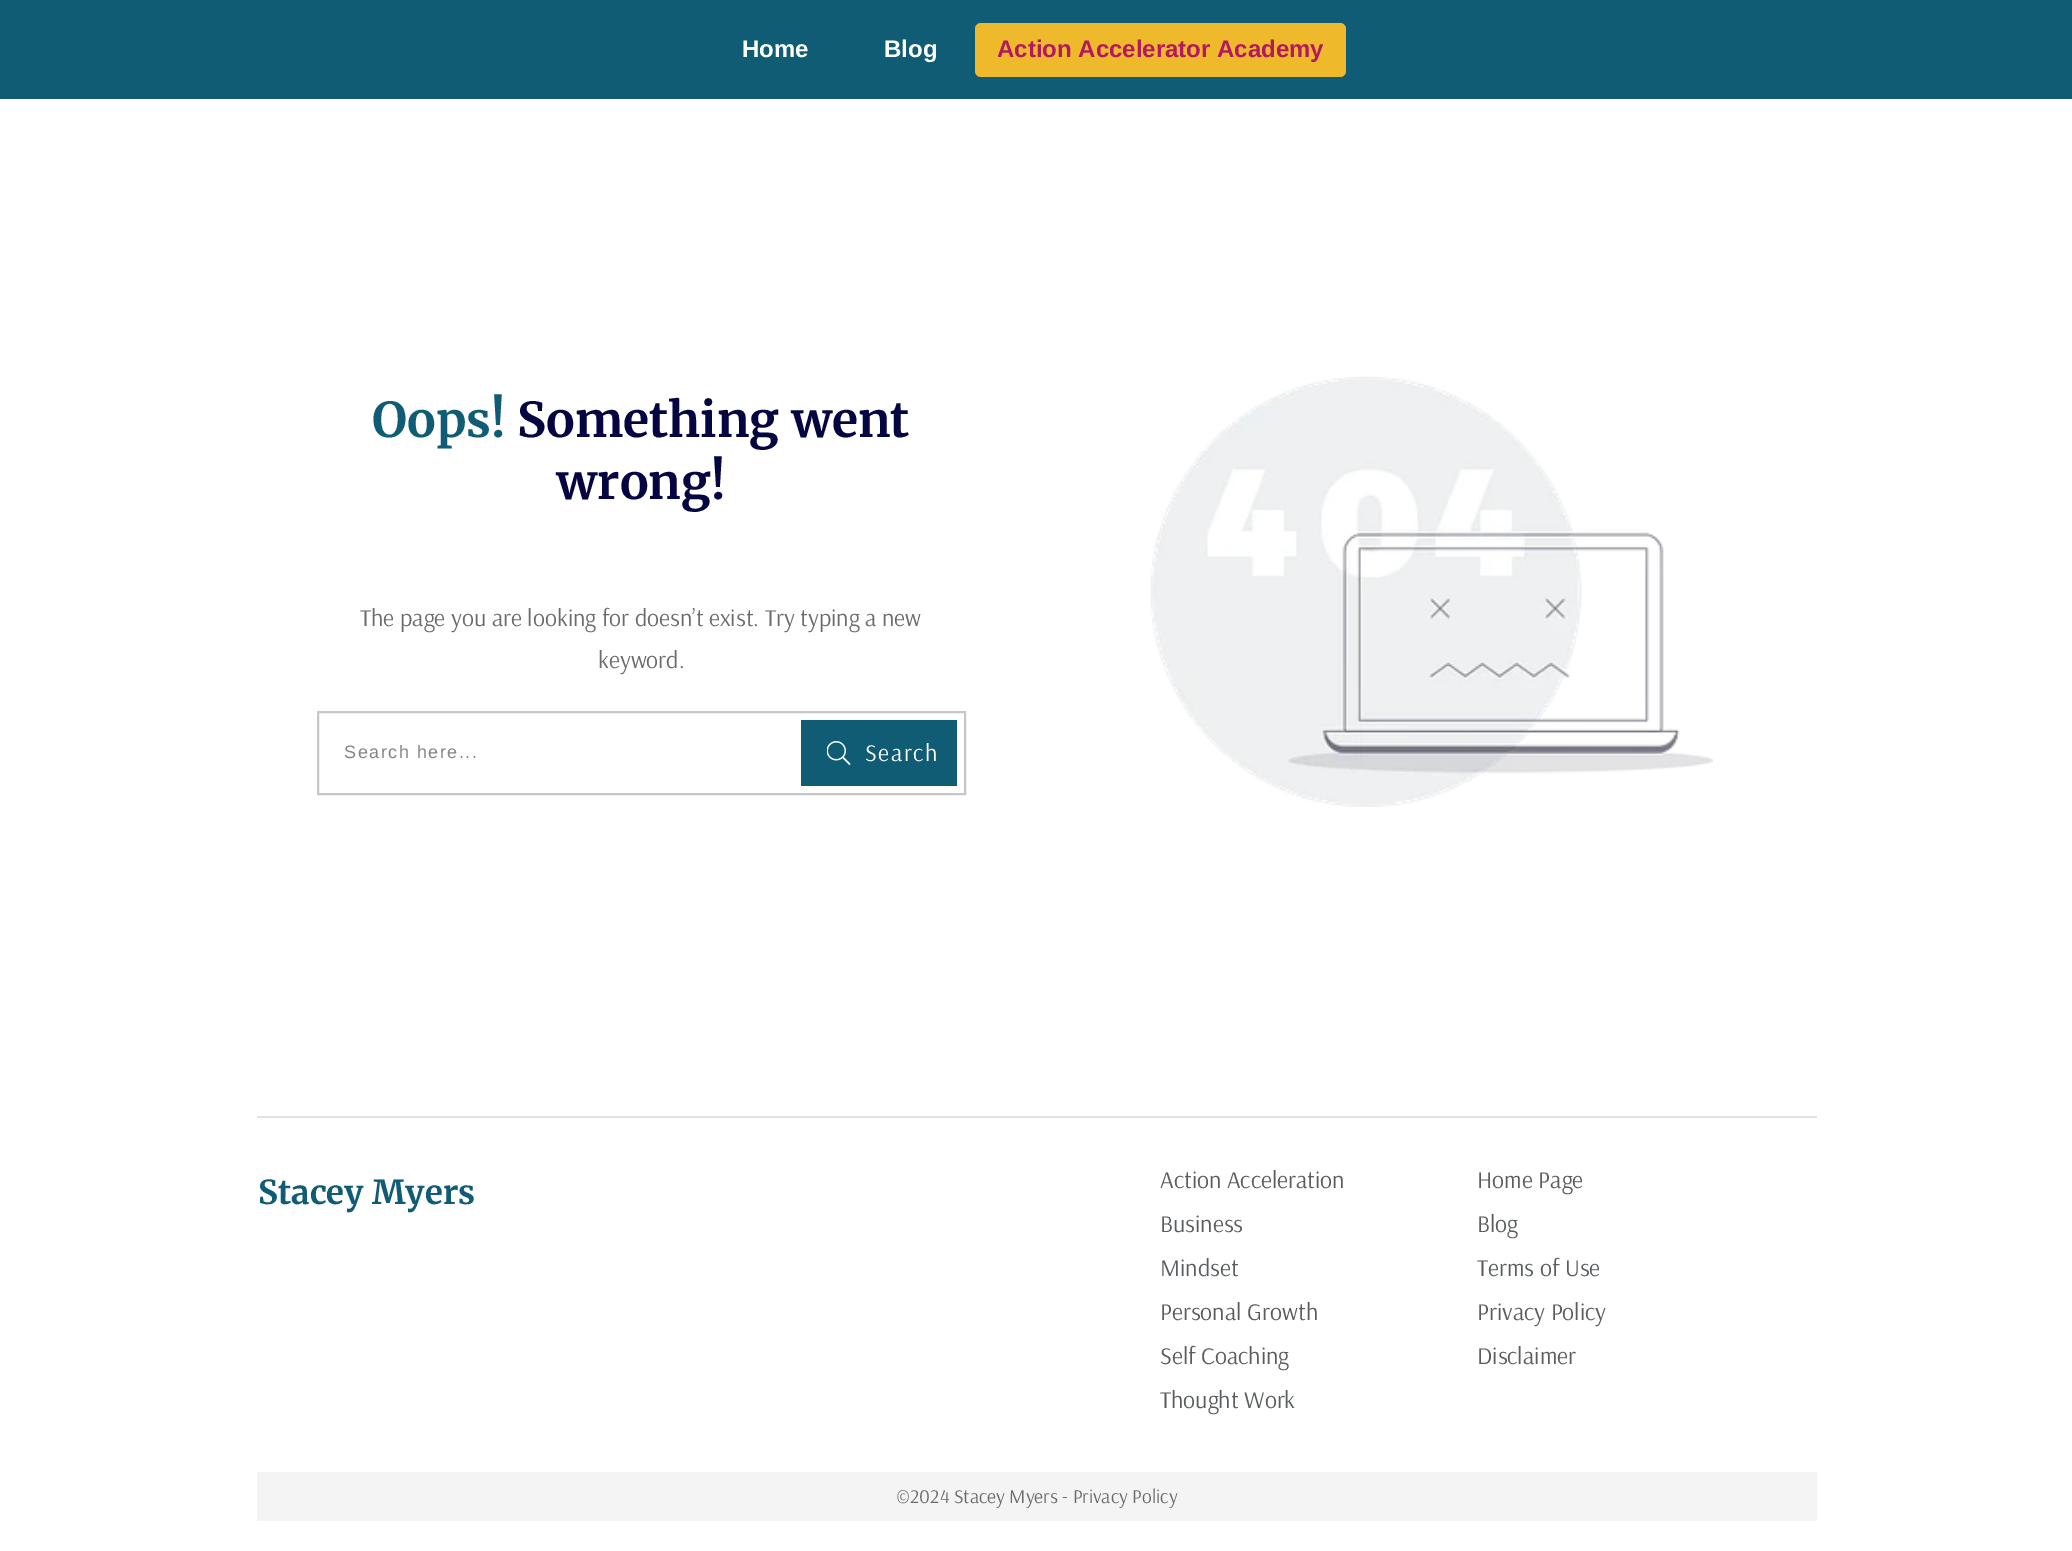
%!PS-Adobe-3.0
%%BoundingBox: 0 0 2072 1551
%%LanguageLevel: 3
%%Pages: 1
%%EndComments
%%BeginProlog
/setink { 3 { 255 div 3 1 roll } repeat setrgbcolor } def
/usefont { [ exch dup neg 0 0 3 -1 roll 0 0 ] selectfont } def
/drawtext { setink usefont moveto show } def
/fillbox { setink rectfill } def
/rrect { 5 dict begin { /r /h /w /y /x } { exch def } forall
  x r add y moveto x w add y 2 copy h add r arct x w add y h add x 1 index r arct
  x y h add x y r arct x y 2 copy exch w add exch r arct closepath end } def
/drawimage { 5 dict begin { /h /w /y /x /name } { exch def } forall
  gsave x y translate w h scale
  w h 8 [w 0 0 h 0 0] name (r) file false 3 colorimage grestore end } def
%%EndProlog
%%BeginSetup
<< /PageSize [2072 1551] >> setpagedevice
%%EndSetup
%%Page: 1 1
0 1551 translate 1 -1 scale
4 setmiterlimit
0 0 2072 1551 255 255 255 fillbox
0 0 2072 99 16 92 117 fillbox
(Home) 742 57 /LiberationSans-Bold 24 255 255 255 drawtext
(Blog) 884 57 /LiberationSans-Bold 24 255 255 255 drawtext
238 186 43 setink
975 23 371 54 6 rrect fill
gsave
998 26 325 48 rectclip
(Action Accelerator Academy) 997 57 /LiberationSans-Bold 24 179 24 97 drawtext
grestore
(Oops!) 372 437 /Merriweather-Bold 48 16 92 117 drawtext
(Something went) 517 437 /Merriweather-Bold 48 5 5 65 drawtext
(wrong!) 556 499 /Merriweather-Bold 48 5 5 65 drawtext
(The page you are looking for doesn’t exist. Try typing a new) 360 626 /Arsenal-Regular 24 106 107 108 drawtext
(keyword.) 598 668 /Arsenal-Regular 24 106 107 108 drawtext
199 199 199 setink
2 setlinewidth
318 712 647 82 rectstroke
/LiberationSans-Regular 18 usefont
133 133 133 setink
344 758 moveto 1.5 0 (Search here...) ashow
801 720 156 66 16 92 117 fillbox
(assets/img1.rgb) 827 741 24 24 drawimage
/Arsenal-Regular 24 usefont
255 255 255 setink
865 761 moveto 1.5 0 (Search) ashow
(assets/img2.rgb) 1150 376 563 431 drawimage
257 1116 1560 2 226 226 226 fillbox
(Stacey Myers) 258 1204 /Merriweather-Bold 33 16 92 117 drawtext
(Action Acceleration) 1160 1188 /Arsenal-Regular 24 89 93 95 drawtext
(Business) 1160 1232 /Arsenal-Regular 24 89 93 95 drawtext
(Mindset) 1160 1276 /Arsenal-Regular 24 89 93 95 drawtext
(Personal Growth) 1160 1320 /Arsenal-Regular 24 89 93 95 drawtext
(Self Coaching) 1160 1364 /Arsenal-Regular 24 89 93 95 drawtext
(Thought Work) 1160 1408 /Arsenal-Regular 24 89 93 95 drawtext
(Home Page) 1477 1188 /Arsenal-Regular 24 89 93 95 drawtext
(Blog) 1477 1232 /Arsenal-Regular 24 89 93 95 drawtext
(Terms of Use) 1477 1276 /Arsenal-Regular 24 89 93 95 drawtext
(Privacy Policy) 1477 1320 /Arsenal-Regular 24 89 93 95 drawtext
(Disclaimer) 1477 1364 /Arsenal-Regular 24 89 93 95 drawtext
257 1472 1560 49 244 244 244 fillbox
(©2024 Stacey Myers - Privacy Policy) 896 1503 /Arsenal-Regular 19.5 106 107 108 drawtext
showpage
%%EOF
